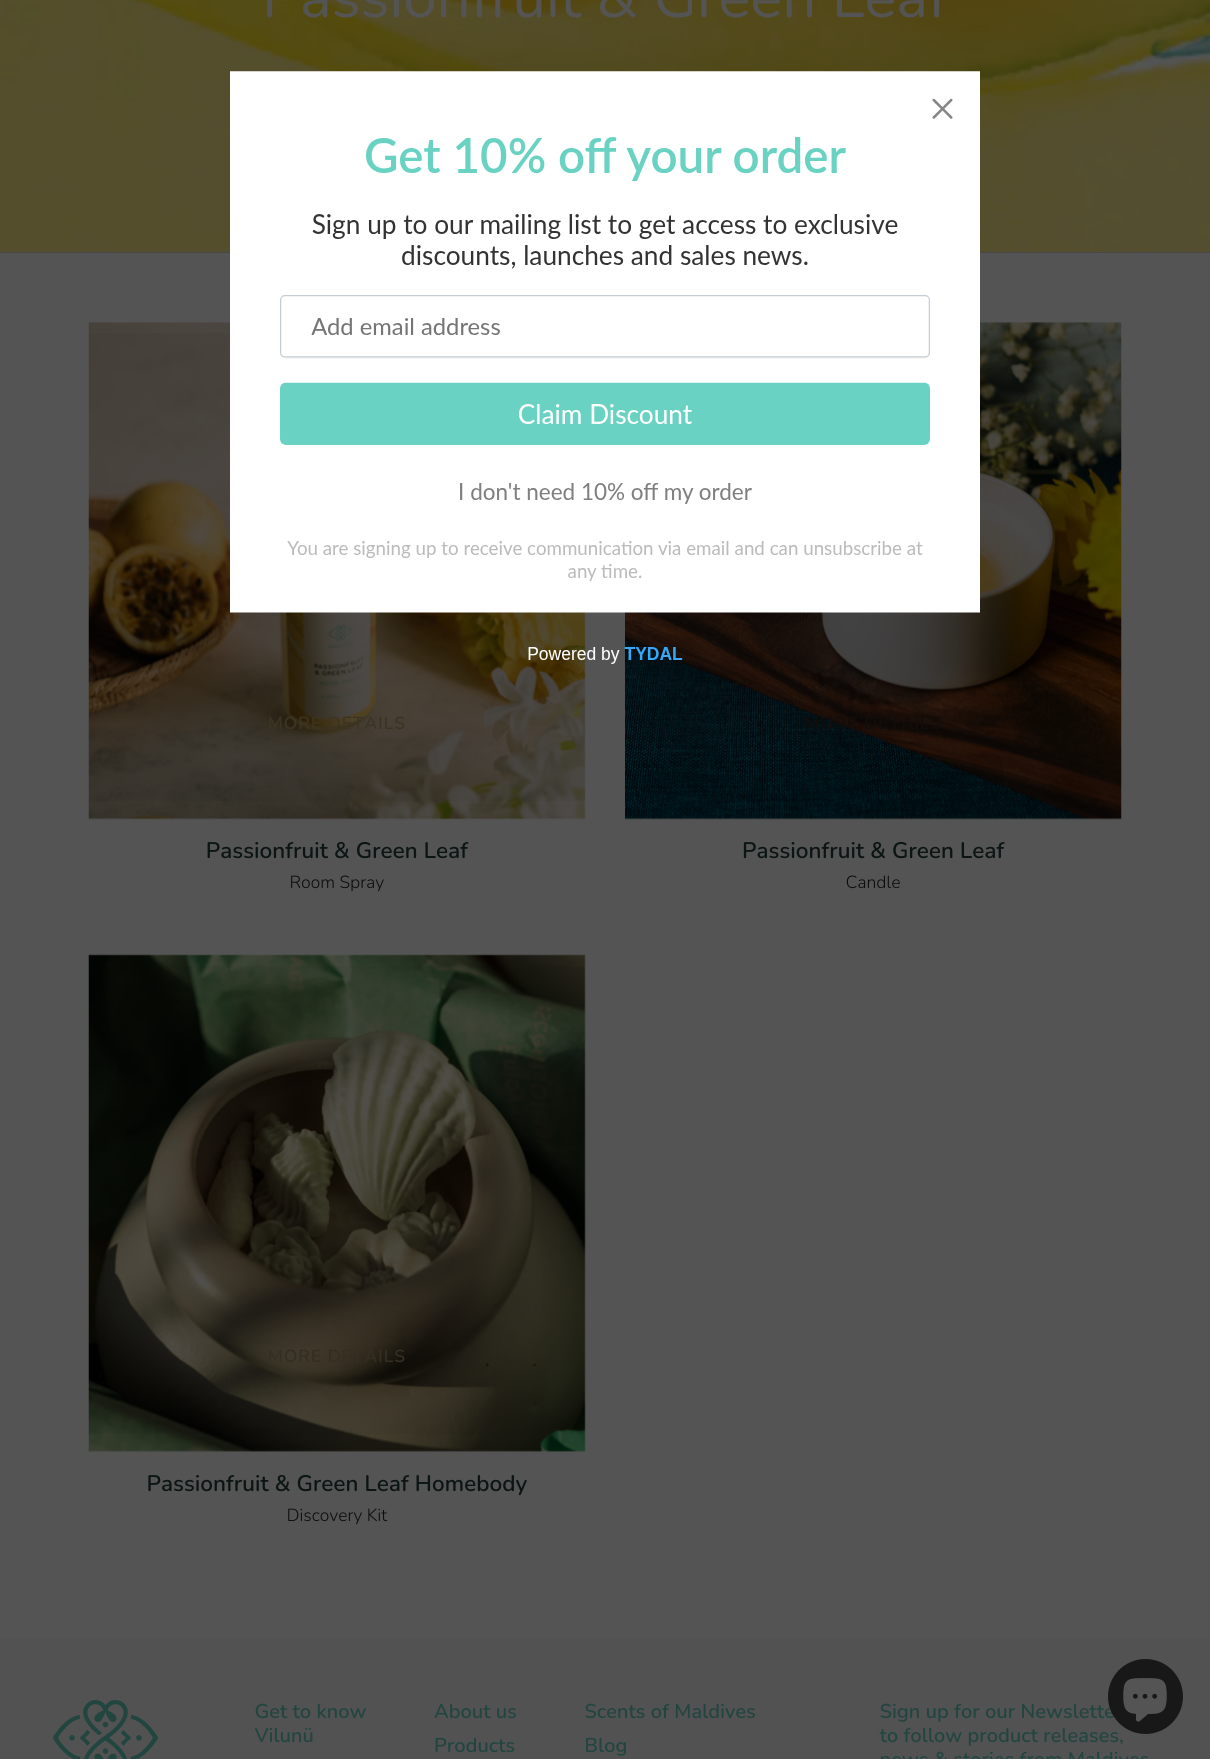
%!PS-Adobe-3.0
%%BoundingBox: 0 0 1210 1759
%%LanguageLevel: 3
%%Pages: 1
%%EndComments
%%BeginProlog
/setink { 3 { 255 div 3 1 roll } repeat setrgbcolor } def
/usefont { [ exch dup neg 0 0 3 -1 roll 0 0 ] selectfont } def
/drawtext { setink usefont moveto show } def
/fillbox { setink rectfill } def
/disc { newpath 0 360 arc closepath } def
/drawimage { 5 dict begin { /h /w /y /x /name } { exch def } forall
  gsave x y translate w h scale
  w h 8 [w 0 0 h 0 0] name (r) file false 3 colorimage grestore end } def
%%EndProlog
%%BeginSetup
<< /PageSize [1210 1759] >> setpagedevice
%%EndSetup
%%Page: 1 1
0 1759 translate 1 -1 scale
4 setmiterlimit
0 0 1210 1759 255 255 255 fillbox
0 252 1210 1 215 217 217 fillbox
(assets/img2.rgb) 0 0 1210 252 drawimage
(assets/img3.rgb) 88 322 498 498 drawimage
/Nunito-SemiBold 17.5 usefont
183 156 104 setink
268 729 moveto 0.9 0 (MORE DETAILS) ashow
(Passionfruit & Green Leaf) 206 858 /Nunito-SemiBold 22.5 32 63 58 drawtext
(Room Spray) 290 888 /Nunito-Light 17.5 35 35 35 drawtext
(assets/img4.rgb) 625 322 497 498 drawimage
(Passionfruit & Green Leaf) 742 858 /Nunito-SemiBold 22.5 32 63 58 drawtext
(Candle) 846 888 /Nunito-Light 17.5 35 35 35 drawtext
(assets/img5.rgb) 88 954 498 498 drawimage
/Nunito-SemiBold 17.5 usefont
157 140 102 setink
268 1362 moveto 0.9 0 (MORE D) ashow
364 1362 moveto 0.9 0 (AILS) ashow
(Passionfruit & Green Leaf Homebody) 147 1491 /Nunito-SemiBold 22.5 32 63 58 drawtext
(Discovery Kit) 287 1521 /Nunito-Light 17.5 35 35 35 drawtext
249 249 249 setink
0.5 1639.5 moveto 1209.5 1639.5 lineto 1209.5 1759.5 lineto 0.5 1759.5 lineto closepath gsave fill grestore
240 251 249 setink
stroke
(assets/img6.rgb) 53 1700 105 59 drawimage
(Get to know) 255 1718 /Nunito-SemiBold 20 105 210 194 drawtext
(Vilunü) 255 1742 /Nunito-SemiBold 20 105 210 194 drawtext
(About us) 434 1718 /Nunito-SemiBold 20 105 210 194 drawtext
(Products) 434 1752 /Nunito-SemiBold 20 105 210 194 drawtext
(Scents of Maldives) 584 1718 /Nunito-SemiBold 20 105 210 194 drawtext
(Blog) 584 1752 /Nunito-SemiBold 20 105 210 194 drawtext
(Sign up for our Newslette) 880 1718 /Nunito-SemiBold 20 105 210 194 drawtext
(to follow product releases,) 880 1742 /Nunito-SemiBold 20 105 210 194 drawtext
73 73 73 setink
1145.5 1696.5 37.5 disc fill
(assets/img7.rgb) 1123 1678 44 44 drawimage
(assets/img1.rgb) 0 0 1210 1759 drawimage
showpage
%%EOF
